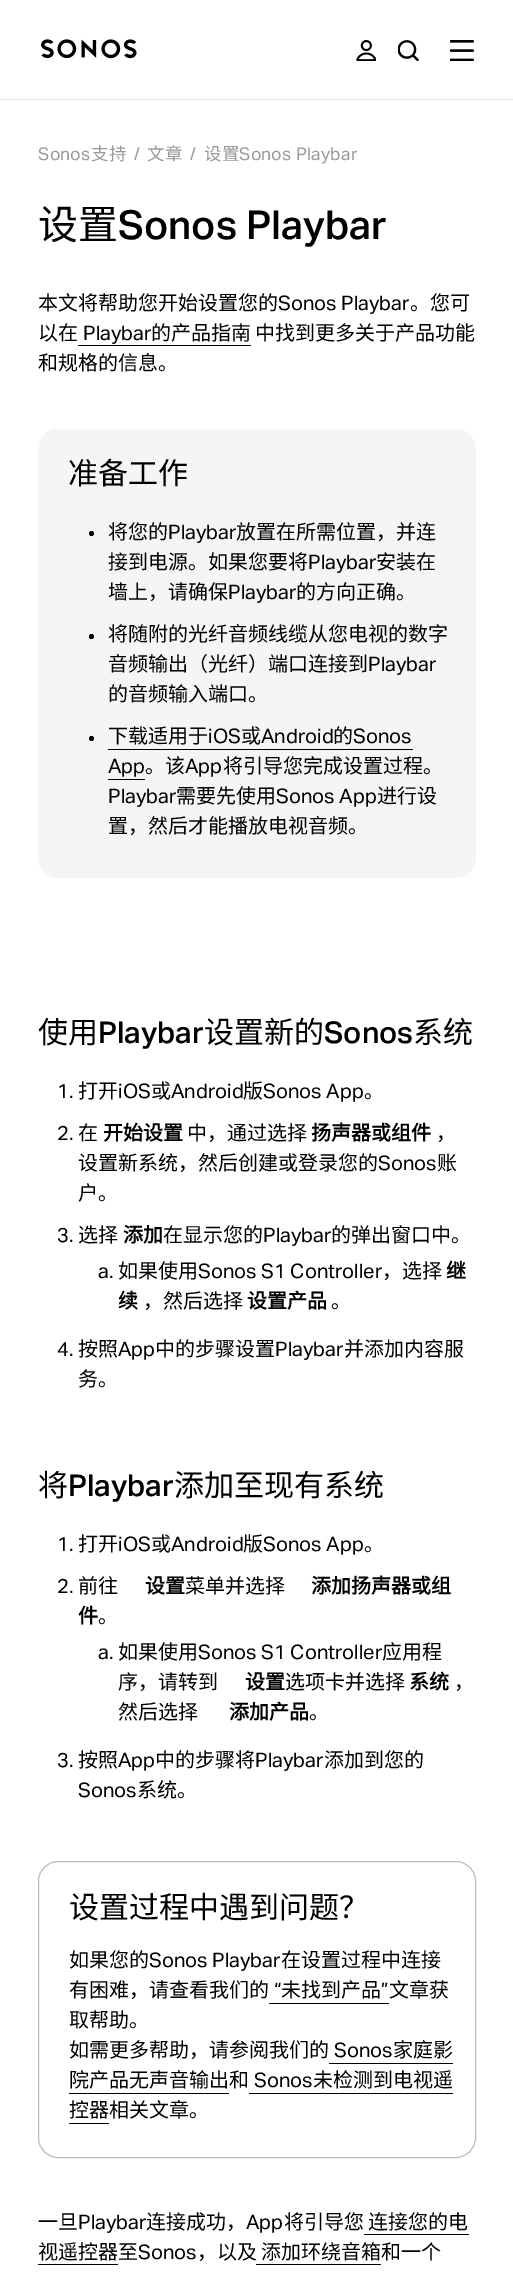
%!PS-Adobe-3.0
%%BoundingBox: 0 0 513 2280
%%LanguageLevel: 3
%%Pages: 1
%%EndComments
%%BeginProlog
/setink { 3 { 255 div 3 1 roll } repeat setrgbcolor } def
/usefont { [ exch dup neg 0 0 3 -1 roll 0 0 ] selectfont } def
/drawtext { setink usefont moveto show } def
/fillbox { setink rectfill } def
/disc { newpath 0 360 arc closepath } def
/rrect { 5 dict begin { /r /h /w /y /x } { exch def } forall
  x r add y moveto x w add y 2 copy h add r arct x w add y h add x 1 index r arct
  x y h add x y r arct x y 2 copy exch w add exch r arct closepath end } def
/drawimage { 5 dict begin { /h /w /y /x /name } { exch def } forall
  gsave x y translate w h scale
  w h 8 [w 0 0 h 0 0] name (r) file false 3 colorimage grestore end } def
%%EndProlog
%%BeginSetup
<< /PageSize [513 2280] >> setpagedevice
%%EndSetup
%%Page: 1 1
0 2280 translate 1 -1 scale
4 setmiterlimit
0 0 513 2280 255 255 255 fillbox
0 99 513 1 224 224 224 fillbox
(assets/img1.rgb) 41 39 96 20 drawimage
(assets/img2.rgb) 356 40 20 21 drawimage
(assets/img3.rgb) 398 40 21 21 drawimage
(assets/img4.rgb) 450 40 24 21 drawimage
/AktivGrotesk-Regular 17.5 usefont
153 153 153 setink
38 160 moveto 0.25 0 (Sonos) ashow
/NotoSansCJKSC-Regular 17.5 usefont
91 160 moveto 0.25 0 (支持) ashow
/AktivGrotesk-Regular 17.5 usefont
134 160 moveto 0.25 0 (/) ashow
/NotoSansCJKSC-Regular 17.5 usefont
147 160 moveto 0.25 0 (文章) ashow
/AktivGrotesk-Regular 17.5 usefont
190 160 moveto 0.25 0 (/) ashow
/NotoSansCJKSC-Regular 17.5 usefont
204 160 moveto 0.25 0 (设置) ashow
/AktivGrotesk-Regular 17.5 usefont
239 160 moveto 0.25 0 (Sonos Playbar) ashow
(设置) 38 239 /NotoSansCJKSC-Regular 40 0 0 0 drawtext
(Sonos Playbar) 118 239 /AktivGrotesk-Medium 40 0 0 0 drawtext
(本文将帮助您开始设置您的) 38 310 /NotoSansCJKSC-Regular 20 0 0 0 drawtext
(Sonos Playbar) 278 310 /AktivGrotesk-Regular 20 0 0 0 drawtext
(。您可) 410 310 /NotoSansCJKSC-Regular 20 0 0 0 drawtext
(以在) 38 340 /NotoSansCJKSC-Regular 20 0 0 0 drawtext
(Playbar) 83 340 /AktivGrotesk-Regular 20 0 0 0 drawtext
78 345 173 1 0 0 0 fillbox
(的产品指南 中找到更多关于产品功能) 151 340 /NotoSansCJKSC-Regular 20 0 0 0 drawtext
(和规格的信息。) 38 370 /NotoSansCJKSC-Regular 20 0 0 0 drawtext
245 245 245 setink
38 429 438 449 20 rrect fill
(准备工作) 68 484 /NotoSansCJKSC-Regular 30 0 0 0 drawtext
91.5 533.5 2.5 disc fill
(将您的) 108 539 /NotoSansCJKSC-Regular 20 0 0 0 drawtext
(Playbar) 168 539 /AktivGrotesk-Regular 20 0 0 0 drawtext
(放置在所需位置，并连) 236 539 /NotoSansCJKSC-Regular 20 0 0 0 drawtext
(接到电源。如果您要将) 108 569 /NotoSansCJKSC-Regular 20 0 0 0 drawtext
(Playbar) 308 569 /AktivGrotesk-Regular 20 0 0 0 drawtext
(安装在) 376 569 /NotoSansCJKSC-Regular 20 0 0 0 drawtext
(墙上，请确保) 108 599 /NotoSansCJKSC-Regular 20 0 0 0 drawtext
(Playbar) 228 599 /AktivGrotesk-Regular 20 0 0 0 drawtext
(的方向正确。) 296 599 /NotoSansCJKSC-Regular 20 0 0 0 drawtext
91.5 636.5 2.5 disc fill
(将随附的光纤音频线缆从您电视的数字) 108 641 /NotoSansCJKSC-Regular 20 0 0 0 drawtext
(音频输出（光纤）端口连接到) 108 671 /NotoSansCJKSC-Regular 20 0 0 0 drawtext
(Playbar) 368 671 /AktivGrotesk-Regular 20 0 0 0 drawtext
(的音频输入端口。) 108 701 /NotoSansCJKSC-Regular 20 0 0 0 drawtext
91.5 738.5 2.5 disc fill
(下载适用于) 108 743 /NotoSansCJKSC-Regular 20 0 0 0 drawtext
(iOS) 208 743 /AktivGrotesk-Regular 20 0 0 0 drawtext
108 749 305 1 0 0 0 fillbox
(或) 241 743 /NotoSansCJKSC-Regular 20 0 0 0 drawtext
(Android) 261 743 /AktivGrotesk-Regular 20 0 0 0 drawtext
(的) 333 743 /NotoSansCJKSC-Regular 20 0 0 0 drawtext
(Sonos) 353 743 /AktivGrotesk-Regular 20 0 0 0 drawtext
(App) 108 773 /AktivGrotesk-Regular 20 0 0 0 drawtext
108 779 37 1 0 0 0 fillbox
(。该) 145 773 /NotoSansCJKSC-Regular 20 0 0 0 drawtext
(App) 185 773 /AktivGrotesk-Regular 20 0 0 0 drawtext
(将引导您完成设置过程。) 223 773 /NotoSansCJKSC-Regular 20 0 0 0 drawtext
(Playbar) 108 803 /AktivGrotesk-Regular 20 0 0 0 drawtext
(需要先使用) 176 803 /NotoSansCJKSC-Regular 20 0 0 0 drawtext
(Sonos App) 276 803 /AktivGrotesk-Regular 20 0 0 0 drawtext
(进行设) 377 803 /NotoSansCJKSC-Regular 20 0 0 0 drawtext
(置，然后才能播放电视音频。) 108 833 /NotoSansCJKSC-Regular 20 0 0 0 drawtext
(使用) 38 1043 /NotoSansCJKSC-Regular 30 0 0 0 drawtext
(Playbar) 98 1043 /AktivGrotesk-Medium 30 0 0 0 drawtext
(设置新的) 204 1043 /NotoSansCJKSC-Regular 30 0 0 0 drawtext
(Sonos) 324 1043 /AktivGrotesk-Medium 30 0 0 0 drawtext
(系统) 413 1043 /NotoSansCJKSC-Regular 30 0 0 0 drawtext
(1.) 57 1098 /AktivGrotesk-Regular 20 0 0 0 drawtext
(打开) 78 1098 /NotoSansCJKSC-Regular 20 0 0 0 drawtext
(iOS) 118 1098 /AktivGrotesk-Regular 20 0 0 0 drawtext
(或) 151 1098 /NotoSansCJKSC-Regular 20 0 0 0 drawtext
(Android) 171 1098 /AktivGrotesk-Regular 20 0 0 0 drawtext
(版) 243 1098 /NotoSansCJKSC-Regular 20 0 0 0 drawtext
(Sonos App) 263 1098 /AktivGrotesk-Regular 20 0 0 0 drawtext
(。) 364 1098 /NotoSansCJKSC-Regular 20 0 0 0 drawtext
(2.) 57 1140 /AktivGrotesk-Regular 20 0 0 0 drawtext
(在) 78 1140 /NotoSansCJKSC-Regular 20 0 0 0 drawtext
(开始设置) 103 1140 /NotoSansCJKSC-Bold 20 0 0 0 drawtext
(中，通过选择) 187 1140 /NotoSansCJKSC-Regular 20 0 0 0 drawtext
(扬声器或组件) 311 1140 /NotoSansCJKSC-Bold 20 0 0 0 drawtext
(，) 436 1140 /NotoSansCJKSC-Regular 20 0 0 0 drawtext
(设置新系统，然后创建或登录您的) 78 1170 /NotoSansCJKSC-Regular 20 0 0 0 drawtext
(Sonos) 378 1170 /AktivGrotesk-Regular 20 0 0 0 drawtext
(账) 437 1170 /NotoSansCJKSC-Regular 20 0 0 0 drawtext
(户。) 78 1200 /NotoSansCJKSC-Regular 20 0 0 0 drawtext
(3.) 57 1242 /AktivGrotesk-Regular 20 0 0 0 drawtext
(选择) 78 1242 /NotoSansCJKSC-Regular 20 0 0 0 drawtext
(添加) 123 1242 /NotoSansCJKSC-Bold 20 0 0 0 drawtext
(在显示您的) 163 1242 /NotoSansCJKSC-Regular 20 0 0 0 drawtext
(Playbar) 263 1242 /AktivGrotesk-Regular 20 0 0 0 drawtext
(的弹出窗口中。) 331 1242 /NotoSansCJKSC-Regular 20 0 0 0 drawtext
(a.) 98 1278 /AktivGrotesk-Regular 20 0 0 0 drawtext
(如果使用) 118 1278 /NotoSansCJKSC-Regular 20 0 0 0 drawtext
(Sonos S1 Controller) 198 1278 /AktivGrotesk-Regular 20 0 0 0 drawtext
(，选择) 382 1278 /NotoSansCJKSC-Regular 20 0 0 0 drawtext
(继) 446 1278 /NotoSansCJKSC-Bold 20 0 0 0 drawtext
(续) 118 1308 /NotoSansCJKSC-Bold 20 0 0 0 drawtext
(，然后选择) 143 1308 /NotoSansCJKSC-Regular 20 0 0 0 drawtext
(设置产品) 247 1308 /NotoSansCJKSC-Bold 20 0 0 0 drawtext
(。) 331 1308 /NotoSansCJKSC-Regular 20 0 0 0 drawtext
(4.) 57 1356 /AktivGrotesk-Regular 20 0 0 0 drawtext
(按照) 78 1356 /NotoSansCJKSC-Regular 20 0 0 0 drawtext
(App) 118 1356 /AktivGrotesk-Regular 20 0 0 0 drawtext
(中的步骤设置) 155 1356 /NotoSansCJKSC-Regular 20 0 0 0 drawtext
(Playbar) 275 1356 /AktivGrotesk-Regular 20 0 0 0 drawtext
(并添加内容服) 344 1356 /NotoSansCJKSC-Regular 20 0 0 0 drawtext
(务。) 78 1386 /NotoSansCJKSC-Regular 20 0 0 0 drawtext
(将) 38 1496 /NotoSansCJKSC-Regular 30 0 0 0 drawtext
(Playbar) 68 1496 /AktivGrotesk-Medium 30 0 0 0 drawtext
(添加至现有系统) 174 1496 /NotoSansCJKSC-Regular 30 0 0 0 drawtext
(1.) 57 1551 /AktivGrotesk-Regular 20 0 0 0 drawtext
(打开) 78 1551 /NotoSansCJKSC-Regular 20 0 0 0 drawtext
(iOS) 118 1551 /AktivGrotesk-Regular 20 0 0 0 drawtext
(或) 151 1551 /NotoSansCJKSC-Regular 20 0 0 0 drawtext
(Android) 171 1551 /AktivGrotesk-Regular 20 0 0 0 drawtext
(版) 243 1551 /NotoSansCJKSC-Regular 20 0 0 0 drawtext
(Sonos App) 263 1551 /AktivGrotesk-Regular 20 0 0 0 drawtext
(。) 364 1551 /NotoSansCJKSC-Regular 20 0 0 0 drawtext
(2.) 57 1593 /AktivGrotesk-Regular 20 0 0 0 drawtext
(前往) 78 1593 /NotoSansCJKSC-Regular 20 0 0 0 drawtext
(设置) 145 1593 /NotoSansCJKSC-Bold 20 0 0 0 drawtext
(菜单并选择) 185 1593 /NotoSansCJKSC-Regular 20 0 0 0 drawtext
(添加扬声器或组) 311 1593 /NotoSansCJKSC-Bold 20 0 0 0 drawtext
(件) 78 1623 /NotoSansCJKSC-Bold 20 0 0 0 drawtext
(。) 98 1623 /NotoSansCJKSC-Regular 20 0 0 0 drawtext
(a.) 98 1659 /AktivGrotesk-Regular 20 0 0 0 drawtext
(如果使用) 118 1659 /NotoSansCJKSC-Regular 20 0 0 0 drawtext
(Sonos S1 Controller) 198 1659 /AktivGrotesk-Regular 20 0 0 0 drawtext
(应用程) 382 1659 /NotoSansCJKSC-Regular 20 0 0 0 drawtext
(序，请转到) 118 1689 /NotoSansCJKSC-Regular 20 0 0 0 drawtext
(设置) 245 1689 /NotoSansCJKSC-Bold 20 0 0 0 drawtext
(选项卡并选择) 285 1689 /NotoSansCJKSC-Regular 20 0 0 0 drawtext
(系统) 409 1689 /NotoSansCJKSC-Bold 20 0 0 0 drawtext
(，) 454 1689 /NotoSansCJKSC-Regular 20 0 0 0 drawtext
(然后选择) 118 1719 /NotoSansCJKSC-Regular 20 0 0 0 drawtext
(添加产品) 229 1719 /NotoSansCJKSC-Bold 20 0 0 0 drawtext
(。) 309 1719 /NotoSansCJKSC-Regular 20 0 0 0 drawtext
(3.) 57 1767 /AktivGrotesk-Regular 20 0 0 0 drawtext
(按照) 78 1767 /NotoSansCJKSC-Regular 20 0 0 0 drawtext
(App) 118 1767 /AktivGrotesk-Regular 20 0 0 0 drawtext
(中的步骤将) 155 1767 /NotoSansCJKSC-Regular 20 0 0 0 drawtext
(Playbar) 255 1767 /AktivGrotesk-Regular 20 0 0 0 drawtext
(添加到您的) 324 1767 /NotoSansCJKSC-Regular 20 0 0 0 drawtext
(Sonos) 78 1797 /AktivGrotesk-Regular 20 0 0 0 drawtext
(系统。) 137 1797 /NotoSansCJKSC-Regular 20 0 0 0 drawtext
191 191 191 setink
38.5 1861.5 437 296 19.5 rrect stroke
(设置过程中遇到问题？) 69 1918 /NotoSansCJKSC-Regular 30 0 0 0 drawtext
(如果您的) 69 1967 /NotoSansCJKSC-Regular 20 0 0 0 drawtext
(Sonos Playbar) 149 1967 /AktivGrotesk-Regular 20 0 0 0 drawtext
(在设置过程中连接) 281 1967 /NotoSansCJKSC-Regular 20 0 0 0 drawtext
(有困难，请查看我们的) 69 1997 /NotoSansCJKSC-Regular 20 0 0 0 drawtext
(“) 274 1997 /AktivGrotesk-Regular 20 0 0 0 drawtext
(未找到产品) 281 1997 /NotoSansCJKSC-Regular 20 0 0 0 drawtext
269 2003 120 1 0 0 0 fillbox
(”) 381 1997 /AktivGrotesk-Regular 20 0 0 0 drawtext
(文章获) 389 1997 /NotoSansCJKSC-Regular 20 0 0 0 drawtext
(取帮助。) 69 2027 /NotoSansCJKSC-Regular 20 0 0 0 drawtext
(如需更多帮助，请参阅我们的) 69 2057 /NotoSansCJKSC-Regular 20 0 0 0 drawtext
(Sonos) 334 2057 /AktivGrotesk-Regular 20 0 0 0 drawtext
329 2063 124 1 0 0 0 fillbox
(家庭影) 393 2057 /NotoSansCJKSC-Regular 20 0 0 0 drawtext
(院产品无声音输出和) 69 2087 /NotoSansCJKSC-Regular 20 0 0 0 drawtext
69 2093 160 1 0 0 0 fillbox
(Sonos) 254 2087 /AktivGrotesk-Regular 20 0 0 0 drawtext
249 2093 204 1 0 0 0 fillbox
(未检测到电视遥) 313 2087 /NotoSansCJKSC-Regular 20 0 0 0 drawtext
(控器相关文章。) 69 2117 /NotoSansCJKSC-Regular 20 0 0 0 drawtext
69 2123 40 1 0 0 0 fillbox
(一旦) 38 2229 /NotoSansCJKSC-Regular 20 0 0 0 drawtext
(Playbar) 78 2229 /AktivGrotesk-Regular 20 0 0 0 drawtext
(连接成功，) 146 2229 /NotoSansCJKSC-Regular 20 0 0 0 drawtext
(App) 246 2229 /AktivGrotesk-Regular 20 0 0 0 drawtext
(将引导您 连接您的电) 284 2229 /NotoSansCJKSC-Regular 20 0 0 0 drawtext
(视遥控器至) 38 2259 /NotoSansCJKSC-Regular 20 0 0 0 drawtext
364 2234 105 1 0 0 0 fillbox
38 2264 80 1 0 0 0 fillbox
(Sonos) 138 2259 /AktivGrotesk-Regular 20 0 0 0 drawtext
(，以及 添加环绕音箱和一个) 197 2259 /NotoSansCJKSC-Regular 20 0 0 0 drawtext
256 2264 125 1 0 0 0 fillbox
showpage
%%EOF
